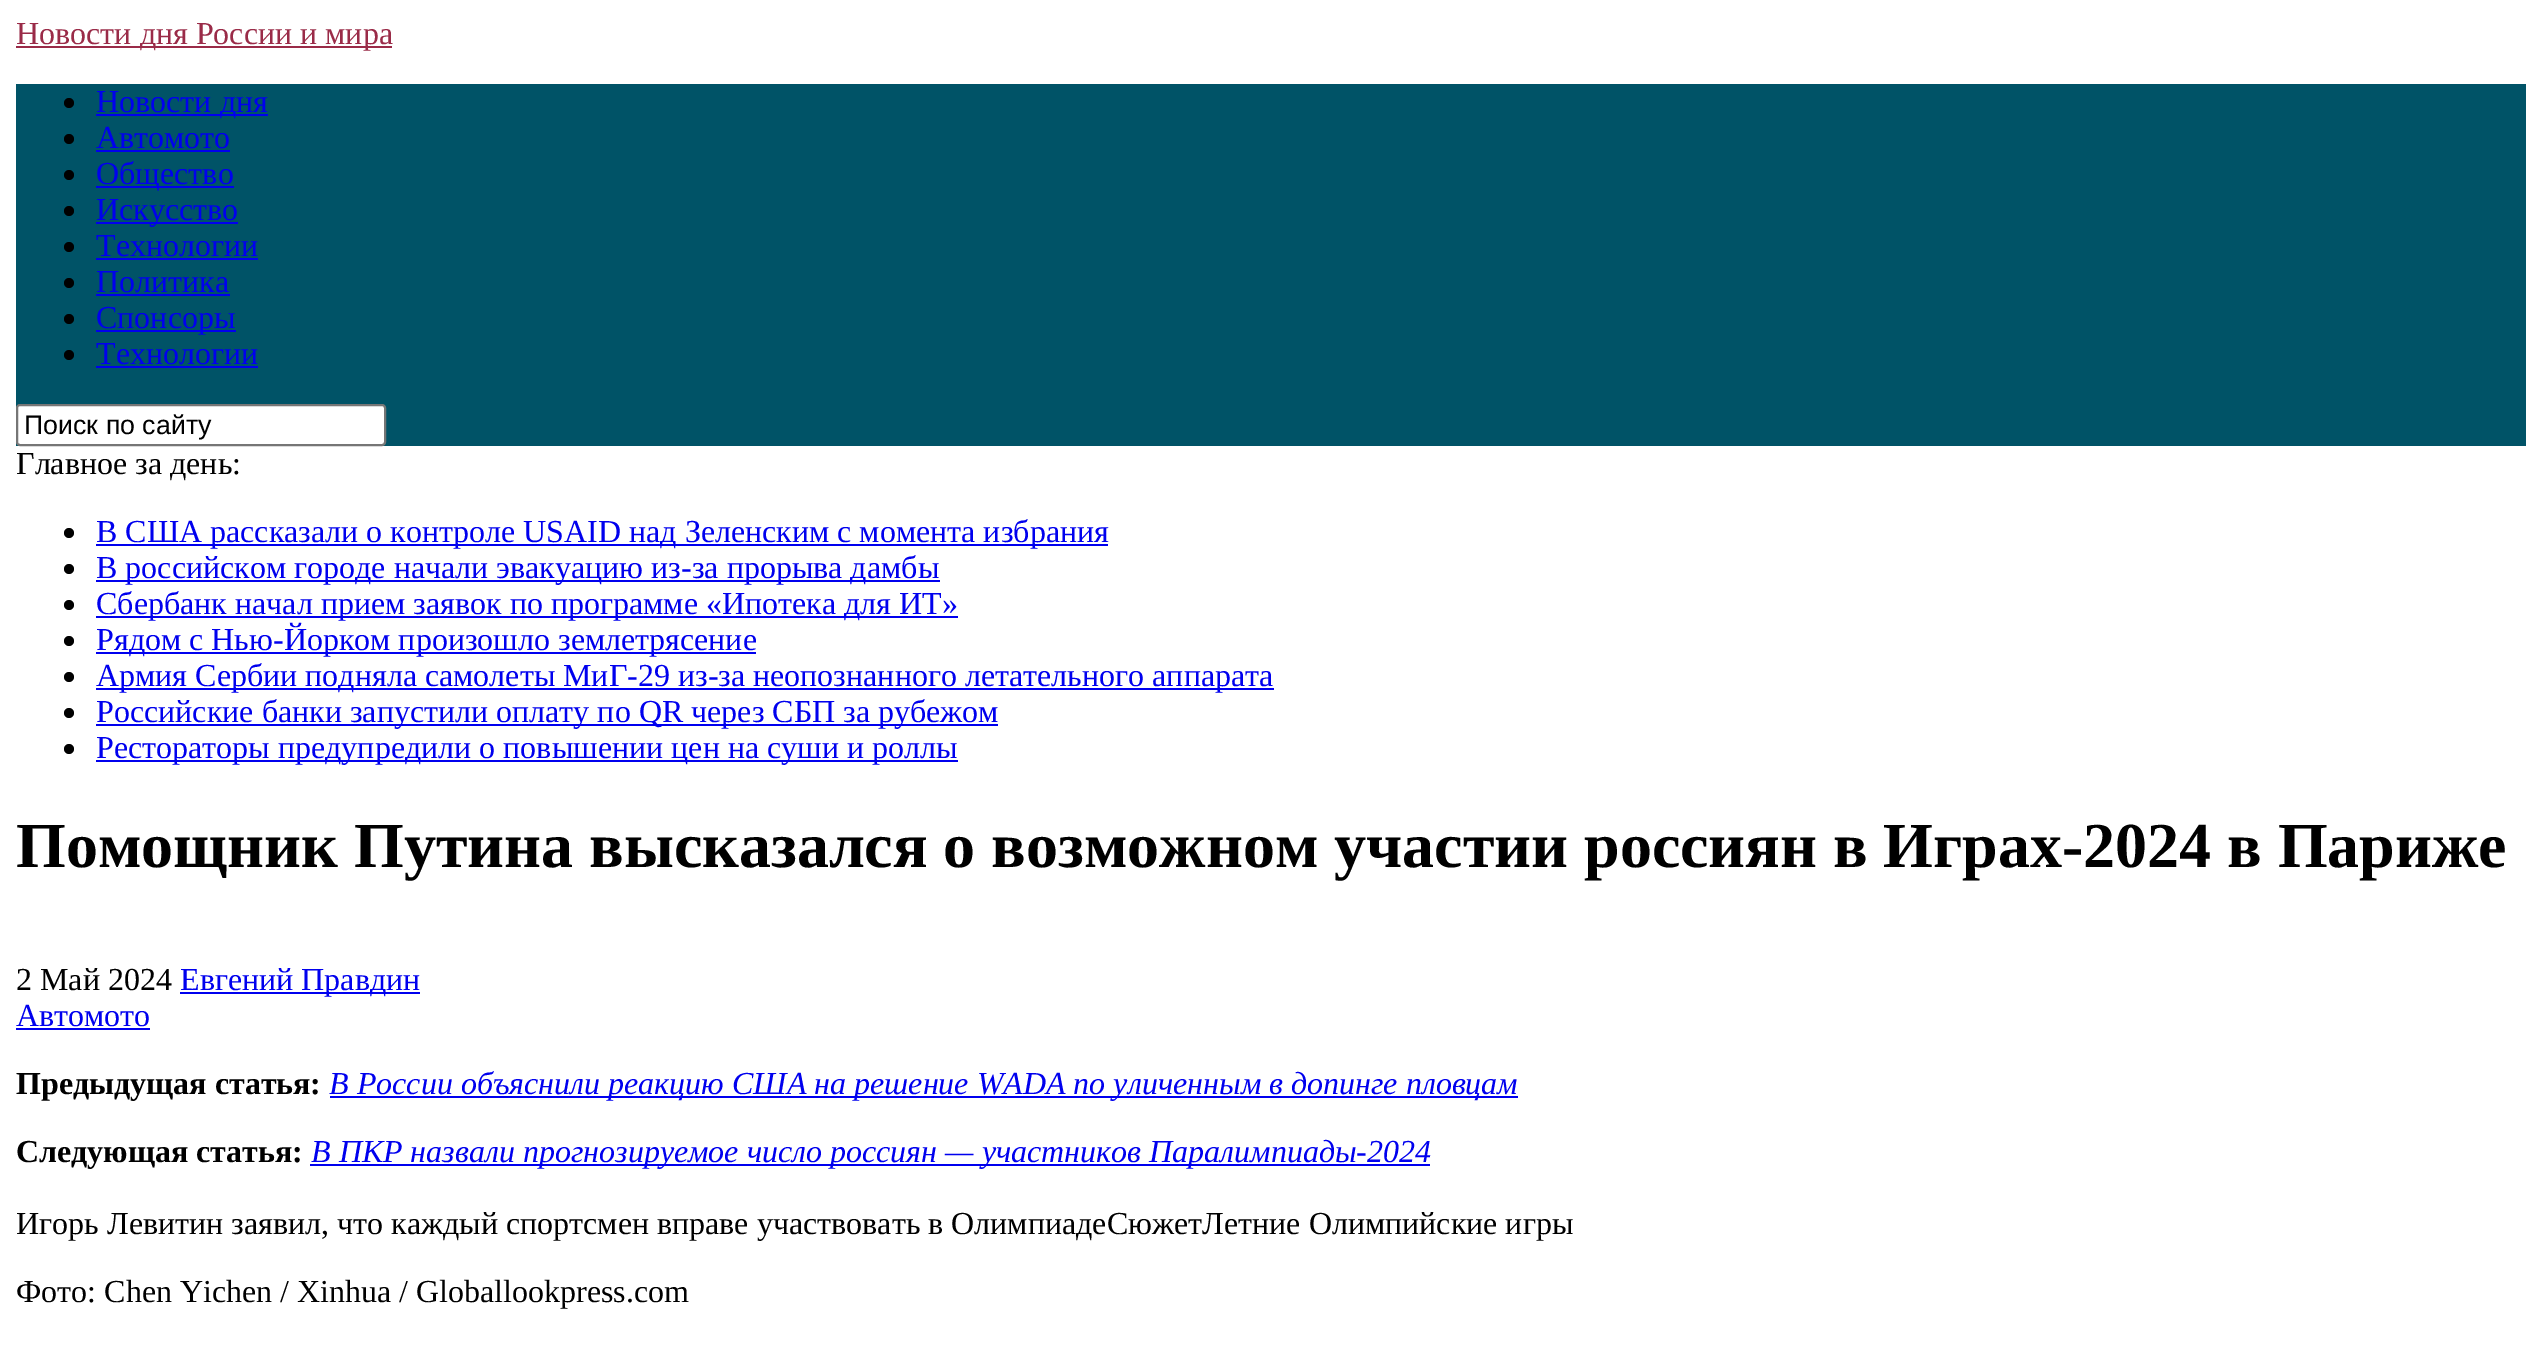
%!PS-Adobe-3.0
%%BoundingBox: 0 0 2542 1357
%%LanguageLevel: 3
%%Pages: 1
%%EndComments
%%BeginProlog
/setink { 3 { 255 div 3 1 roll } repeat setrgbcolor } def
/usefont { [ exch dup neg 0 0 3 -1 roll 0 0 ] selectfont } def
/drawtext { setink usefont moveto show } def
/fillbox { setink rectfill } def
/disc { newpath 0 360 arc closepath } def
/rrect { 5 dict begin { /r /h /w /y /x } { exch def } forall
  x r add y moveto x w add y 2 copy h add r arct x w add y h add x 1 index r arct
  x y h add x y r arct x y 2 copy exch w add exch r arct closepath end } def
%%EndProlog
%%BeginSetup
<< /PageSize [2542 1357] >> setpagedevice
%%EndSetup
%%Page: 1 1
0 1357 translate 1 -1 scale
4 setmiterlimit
0 0 2542 1357 255 255 255 fillbox
16 46 376 2 154 43 72 fillbox
(Новости дня России и мира) 16 44 /LiberationSerif-Regular 32 154 43 72 drawtext
16 84 2510 362 0 83 103 fillbox
0 0 0 setink
69 103 5 disc fill
96 114 172 2 0 0 238 fillbox
(Новости дня) 96 112 /LiberationSerif-Regular 32 0 0 238 drawtext
0 0 0 setink
69 139 5 disc fill
(Автомото) 96 148 /LiberationSerif-Regular 32 0 0 238 drawtext
96 150 134 2 0 0 238 fillbox
0 0 0 setink
69 175 5 disc fill
96 186 138 2 0 0 238 fillbox
(Общество) 96 184 /LiberationSerif-Regular 32 0 0 238 drawtext
0 0 0 setink
69 211 5 disc fill
96 222 142 2 0 0 238 fillbox
(Искусство) 96 220 /LiberationSerif-Regular 32 0 0 238 drawtext
0 0 0 setink
69 247 5 disc fill
(Технологии) 96 256 /LiberationSerif-Regular 32 0 0 238 drawtext
96 258 162 2 0 0 238 fillbox
0 0 0 setink
69 283 5 disc fill
(Политика) 96 292 /LiberationSerif-Regular 32 0 0 238 drawtext
96 294 134 2 0 0 238 fillbox
0 0 0 setink
69 319 5 disc fill
96 330 140 2 0 0 238 fillbox
(Спонсоры) 96 328 /LiberationSerif-Regular 32 0 0 238 drawtext
0 0 0 setink
69 355 5 disc fill
(Технологии) 96 364 /LiberationSerif-Regular 32 0 0 238 drawtext
96 366 162 2 0 0 238 fillbox
255 255 255 setink
17 405 368 40 3 rrect gsave fill grestore
118 118 118 setink
2 setlinewidth
stroke
(Поиск по сайту) 24 434 /LiberationSans-Regular 26.75 0 0 0 drawtext
(Главное за день:) 16 474 /LiberationSerif-Regular 32 0 0 0 drawtext
69 533 5 disc fill
96 544 1012 2 0 0 238 fillbox
(В США рассказали о контроле USAID над Зеленским с момента избрания) 96 542 /LiberationSerif-Regular 32 0 0 238 drawtext
0 0 0 setink
69 569 5 disc fill
96 580 844 2 0 0 238 fillbox
(В российском городе начали эвакуацию из-за прорыва дамбы) 96 578 /LiberationSerif-Regular 32 0 0 238 drawtext
0 0 0 setink
69 605 5 disc fill
96 616 862 2 0 0 238 fillbox
(Сбербанк начал прием заявок по программе «Ипотека для ИТ») 96 614 /LiberationSerif-Regular 32 0 0 238 drawtext
0 0 0 setink
69 641 5 disc fill
96 652 660 2 0 0 238 fillbox
(Рядом с Нью-Йорком произошло землетрясение) 96 650 /LiberationSerif-Regular 32 0 0 238 drawtext
0 0 0 setink
69 677 5 disc fill
96 688 1178 2 0 0 238 fillbox
(Армия Сербии подняла самолеты МиГ-29 из-за неопознанного летательного аппарата) 96 686 /LiberationSerif-Regular 32 0 0 238 drawtext
0 0 0 setink
69 713 5 disc fill
96 724 902 2 0 0 238 fillbox
(Российские банки запустили оплату по QR через СБП за рубежом) 96 722 /LiberationSerif-Regular 32 0 0 238 drawtext
0 0 0 setink
69 749 5 disc fill
96 760 862 2 0 0 238 fillbox
(Рестораторы предупредили о повышении цен на суши и роллы) 96 758 /LiberationSerif-Regular 32 0 0 238 drawtext
(Помощник Путина высказался о возможном участии россиян в Играх-2024 в Париже) 16 867 /LiberationSerif-Bold 64 0 0 0 drawtext
(2 Май 2024) 16 990 /LiberationSerif-Regular 32 0 0 0 drawtext
180 992 240 2 0 0 238 fillbox
(Евгений Правдин) 180 990 /LiberationSerif-Regular 32 0 0 238 drawtext
(Автомото) 16 1026 /LiberationSerif-Regular 32 0 0 238 drawtext
16 1028 134 2 0 0 238 fillbox
(Предыдущая статья:) 16 1094 /LiberationSerif-Bold 32 0 0 0 drawtext
330 1096 1188 2 0 0 238 fillbox
(В России объяснили реакцию США на решение WADA по уличенным в допинге пловцам) 329 1094 /LiberationSerif-Italic 32 0 0 238 drawtext
(Следующая статья:) 16 1162 /LiberationSerif-Bold 32 0 0 0 drawtext
310 1164 1120 2 0 0 238 fillbox
(В ПКР назвали прогнозируемое число россиян — участников Паралимпиады-2024) 311 1162 /LiberationSerif-Italic 32 0 0 238 drawtext
(Игорь Левитин заявил, что каждый спортсмен вправе участвовать в ОлимпиадеСюжетЛетние Олимпийские игры) 16 1234 /LiberationSerif-Regular 32 0 0 0 drawtext
(Фото: Chen Yichen / Xinhua / Globallookpress.com) 16 1302 /LiberationSerif-Regular 32 0 0 0 drawtext
showpage
%%EOF
